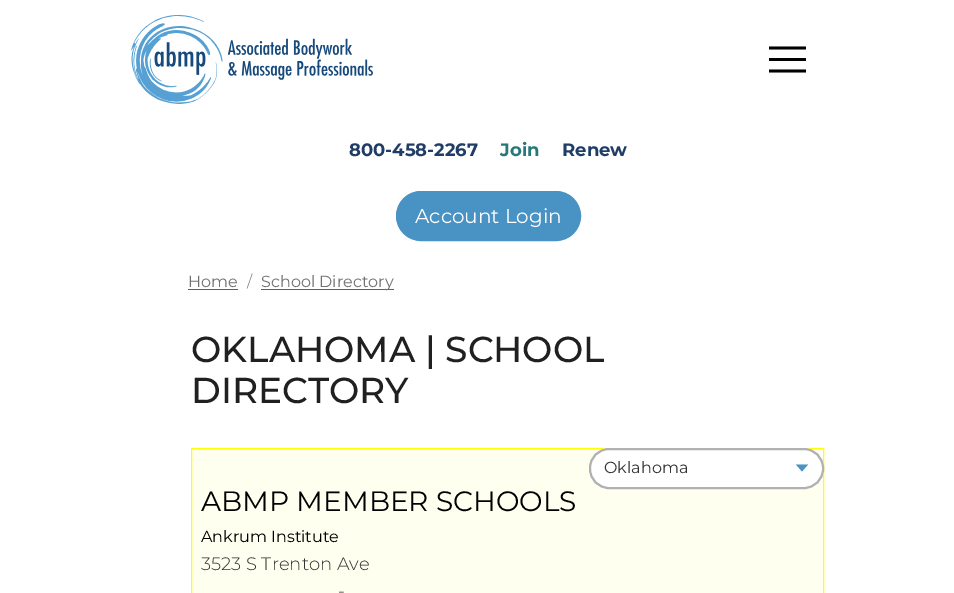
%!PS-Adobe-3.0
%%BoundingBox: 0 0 954 593
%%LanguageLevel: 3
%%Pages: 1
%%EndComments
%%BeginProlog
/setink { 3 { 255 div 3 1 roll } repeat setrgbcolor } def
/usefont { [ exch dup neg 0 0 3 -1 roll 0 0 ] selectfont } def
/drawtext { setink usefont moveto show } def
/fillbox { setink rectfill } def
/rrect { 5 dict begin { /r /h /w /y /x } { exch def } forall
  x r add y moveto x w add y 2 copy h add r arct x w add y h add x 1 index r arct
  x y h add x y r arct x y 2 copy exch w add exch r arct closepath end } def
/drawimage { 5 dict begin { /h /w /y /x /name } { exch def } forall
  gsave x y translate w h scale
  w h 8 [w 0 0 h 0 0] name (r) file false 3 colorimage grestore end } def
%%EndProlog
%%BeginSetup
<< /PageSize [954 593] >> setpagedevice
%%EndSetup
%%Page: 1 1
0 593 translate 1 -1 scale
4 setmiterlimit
0 0 954 593 255 255 255 fillbox
(assets/img1.rgb) 131 15 242 89 drawimage
0 0 0 setink
2.8 setlinewidth
2 setlinecap
770.5 48 moveto 804.5 48 lineto 770.5 59.5 moveto 804.5 59.5 lineto 770.5 71 moveto 804.5 71 lineto stroke
(800-458-2267) 349 156 /Montserrat-Bold 18 32 61 104 drawtext
(Join) 500 156 /Montserrat-Bold 18 38 120 123 drawtext
(Renew) 562 156 /Montserrat-Bold 18 32 61 104 drawtext
73 146 196 setink
396.5 191.5 184 49 24.5 rrect gsave fill grestore
1 setlinewidth
0 setlinecap
stroke
(Account Login) 415 223 /Montserrat-Regular 20 255 255 255 drawtext
(Home) 188 287 /Montserrat-Regular 16 114 114 114 drawtext
188 289 50 1 38 120 123 fillbox
(/) 247 287 /Montserrat-Light 16 108 117 125 drawtext
261 289 133 1 38 120 123 fillbox
(School Directory) 261 287 /Montserrat-Regular 16 114 114 114 drawtext
(OKLAHOMA | SCHOOL) 191 362 /Montserrat-Medium 36 32 32 32 drawtext
(DIRECTORY) 191 403 /Montserrat-Medium 36 32 32 32 drawtext
255 255 240 setink
191.5 448.5 moveto 823.5 448.5 lineto 823.5 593.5 lineto 191.5 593.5 lineto closepath gsave fill grestore
255 255 0 setink
stroke
255 255 255 setink
589 448 235 41 20 rrect fill
74 147 196 setink
802 471.5 moveto 796 464.5 lineto 808 464.5 lineto closepath fill
177 177 177 setink
2 setlinewidth
590 449 233 39 19 rrect stroke
(Oklahoma) 604 473 /Montserrat-Regular 16 51 51 51 drawtext
(ABMP MEMBER SCHOOLS) 201 511 /Montserrat-Regular 28 0 0 0 drawtext
(Ankrum Institute) 201 542 /Montserrat-Regular 16 0 0 0 drawtext
(3523 S Trenton Ave) 201 570 /Montserrat-Light 18 51 51 51 drawtext
(-) 338 597 /Montserrat-Light 18 51 51 51 drawtext
showpage
%%EOF
